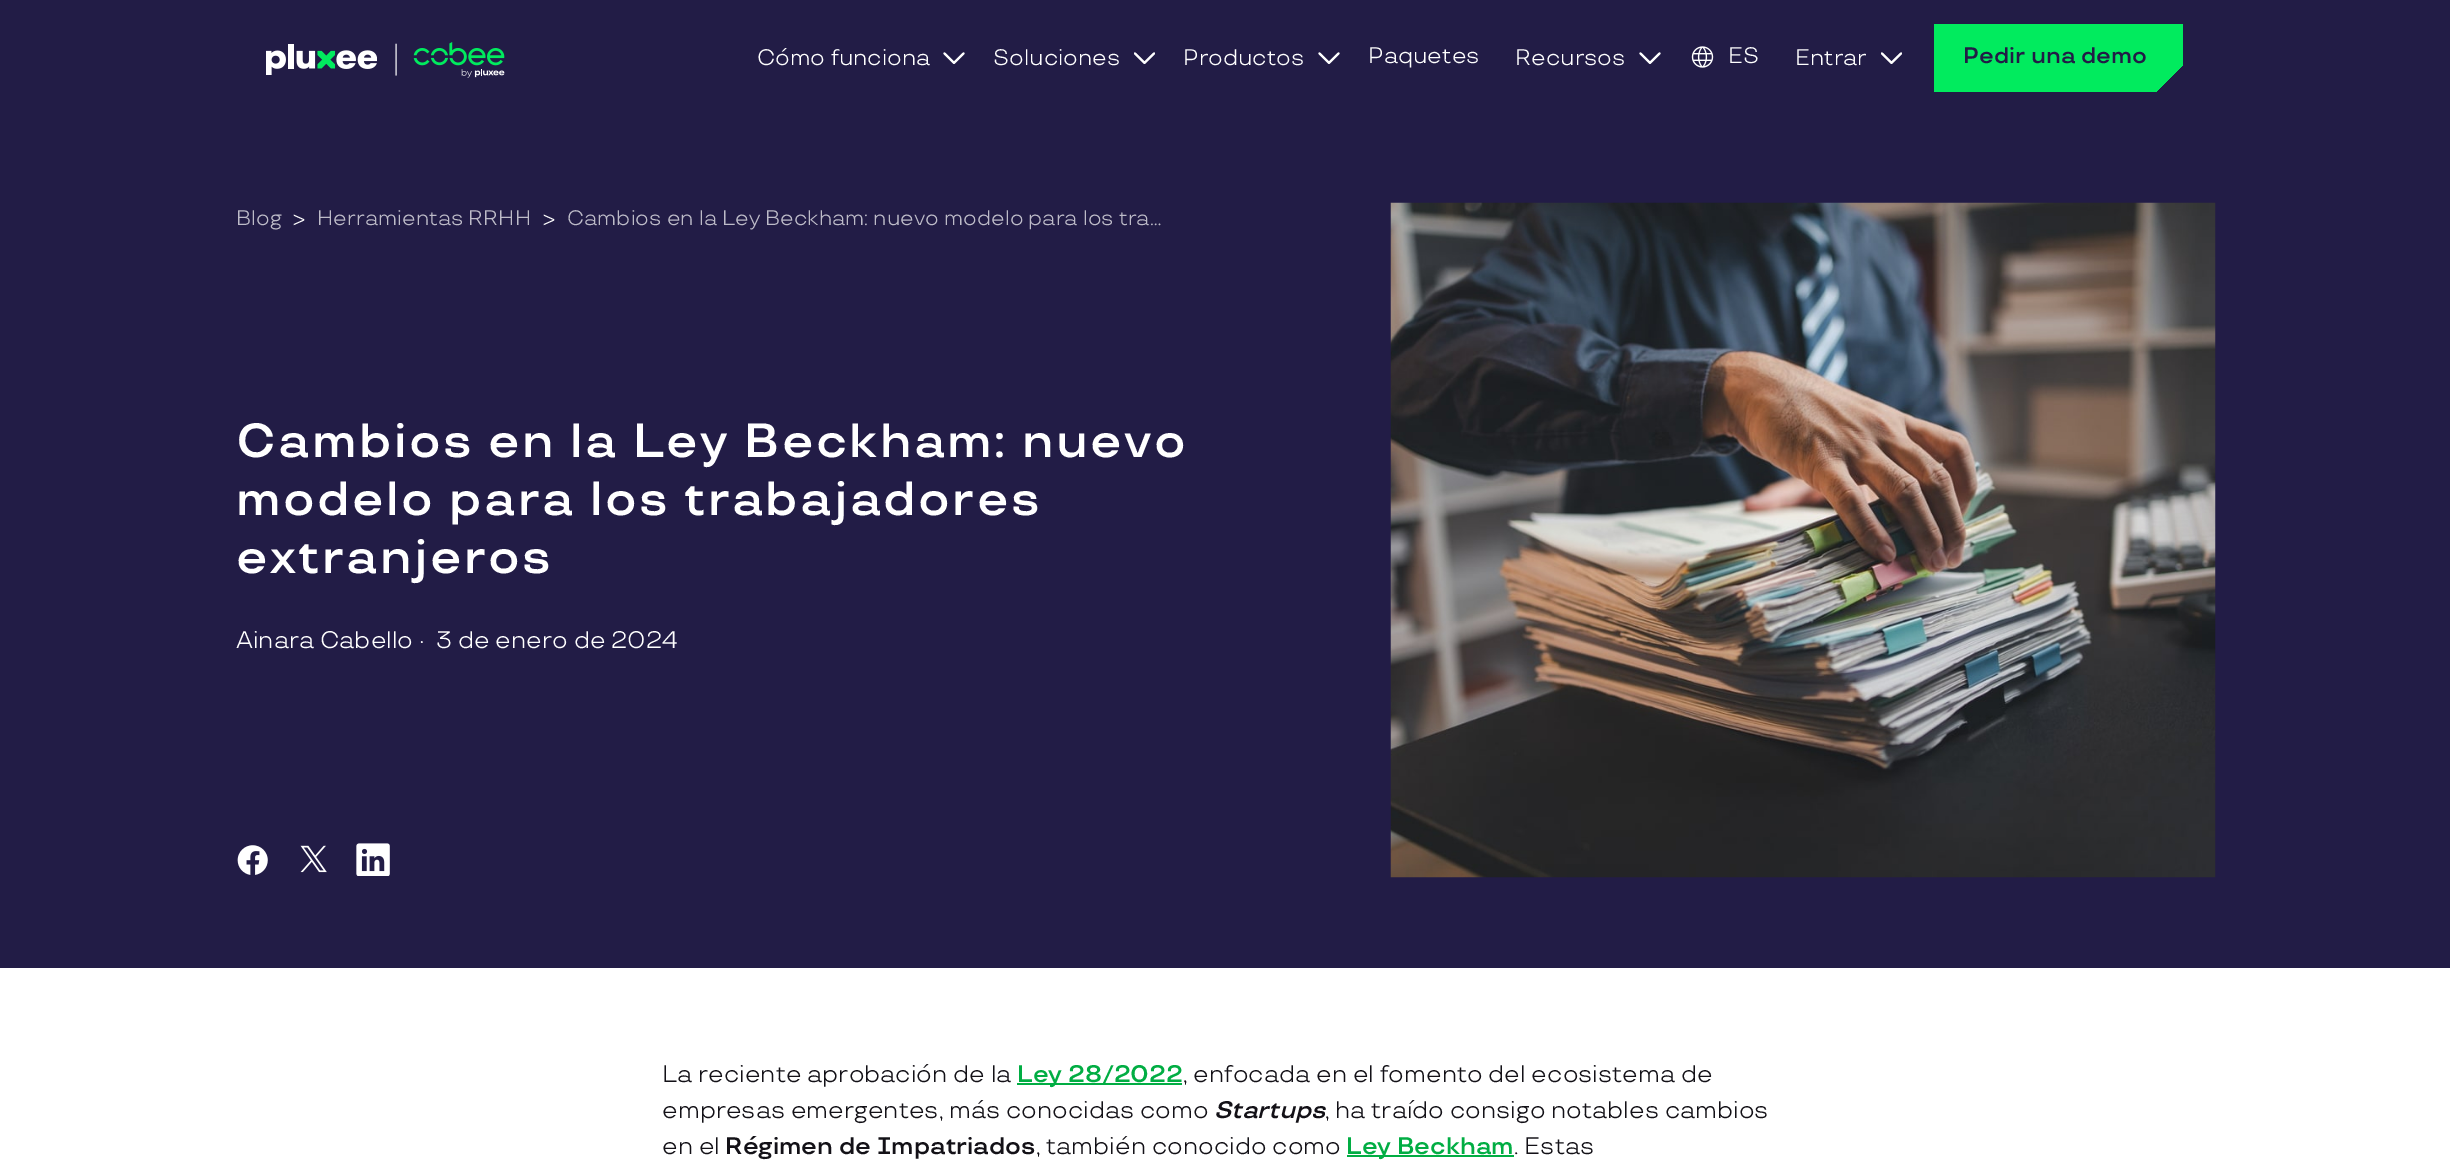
%!PS-Adobe-3.0
%%BoundingBox: 0 0 2450 1171
%%LanguageLevel: 3
%%Pages: 1
%%EndComments
%%BeginProlog
/setink { 3 { 255 div 3 1 roll } repeat setrgbcolor } def
/usefont { [ exch dup neg 0 0 3 -1 roll 0 0 ] selectfont } def
/drawtext { setink usefont moveto show } def
/fillbox { setink rectfill } def
/drawimage { 5 dict begin { /h /w /y /x /name } { exch def } forall
  gsave x y translate w h scale
  w h 8 [w 0 0 h 0 0] name (r) file false 3 colorimage grestore end } def
%%EndProlog
%%BeginSetup
<< /PageSize [2450 1171] >> setpagedevice
%%EndSetup
%%Page: 1 1
0 1171 translate 1 -1 scale
4 setmiterlimit
0 0 2450 1171 255 255 255 fillbox
0 0 2450 968 34 28 70 fillbox
(assets/img1.rgb) 266 42 239 36 drawimage
(Cómo funciona) 757 65 /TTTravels-Regular 22.5 255 255 255 drawtext
(assets/img2.rgb) 943 52 22 12 drawimage
(Soluciones) 993 65 /TTTravels-Regular 22.5 255 255 255 drawtext
(assets/img3.rgb) 1134 52 21 12 drawimage
(Productos) 1183 65 /TTTravels-Regular 22.5 255 255 255 drawtext
(assets/img2.rgb) 1318 52 22 12 drawimage
(Paquetes) 1368 63 /TTTravels-Regular 22.5 255 255 255 drawtext
(Recursos) 1515 65 /TTTravels-Regular 22.5 255 255 255 drawtext
(assets/img2.rgb) 1639 52 22 12 drawimage
(assets/img4.rgb) 1691 46 23 22 drawimage
(ES) 1728 63 /TTTravels-Regular 22.5 255 255 255 drawtext
(Entrar) 1795 65 /TTTravels-Regular 22.5 255 255 255 drawtext
(assets/img3.rgb) 1881 52 21 12 drawimage
gsave 1934 24 moveto 2183 24 lineto 2183 92 lineto 1934 92 lineto closepath clip newpath
<< /ShadingType 2 /ColorSpace /DeviceRGB /Coords [2137 137 1979 -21] /Extend [true true] /Function << /FunctionType 3 /Domain [0 1] /Functions [<< /FunctionType 2 /Domain [0 1] /C0 [0.133 0.11 0.275] /C1 [0.133 0.11 0.275] /N 1 >> << /FunctionType 2 /Domain [0 1] /C0 [0.004 0.922 0.369] /C1 [0.004 0.922 0.369] /N 1 >>] /Bounds [0.08] /Encode [0 1 0 1] >> >> shfill grestore
(Pedir una demo) 1963 63 /TTTravels-SemiBold 22.5 34 28 70 drawtext
(Blog) 236 225 /TTTravels-Regular 21 189 187 200 drawtext
(>) 293 225 /TTTravels-Regular 21 255 255 255 drawtext
(Herramientas RRHH) 317 225 /TTTravels-Regular 21 189 187 200 drawtext
(>) 543 225 /TTTravels-Regular 21 255 255 255 drawtext
(Cambios en la Ley Beckham: nuevo modelo para los tra…) 567 225 /TTTravels-Regular 21 189 187 200 drawtext
/TTTravels-SemiBold 48 usefont
255 255 255 setink
236 457 moveto 2.4 0 (Cambios en la Ley Beckham: nuevo) ashow
236 515 moveto 2.4 0 (modelo para los trabajadores) ashow
236 573 moveto 2.4 0 (extranjeros) ashow
(Ainara Cabello ·) 236 648 /TTTravels-Regular 24 255 255 255 drawtext
(3 de enero de 2024) 436 648 /TTTravels-Regular 24 255 255 255 drawtext
(assets/img5.rgb) 237 845 31 30 drawimage
(assets/img6.rgb) 300 845 27 28 drawimage
(assets/img7.rgb) 356 843 34 33 drawimage
(assets/img8.rgb) 1390 202 826 676 drawimage
(La reciente aprobación de la) 662 1082 /TTTravels-Regular 24 19 17 23 drawtext
1017 1083 165 2 1 173 67 fillbox
(Ley 28/2022) 1017 1082 /TTTravels-SemiBold 24 1 173 67 drawtext
(, enfocada en el fomento del ecosistema de) 1183 1082 /TTTravels-Regular 24 19 17 23 drawtext
(empresas emergentes, más conocidas como) 662 1118 /TTTravels-Regular 24 19 17 23 drawtext
(Startups) 1214 1118 /TTTravels-SemiBoldItalic 24 19 17 23 drawtext
(, ha traído consigo notables cambios) 1325 1118 /TTTravels-Regular 24 19 17 23 drawtext
(en el) 662 1154 /TTTravels-Regular 24 19 17 23 drawtext
(Régimen de Impatriados) 725 1154 /TTTravels-SemiBold 24 19 17 23 drawtext
(, también conocido como) 1036 1154 /TTTravels-Regular 24 19 17 23 drawtext
1347 1155 167 2 1 173 67 fillbox
(Ley Beckham) 1346 1154 /TTTravels-SemiBold 24 1 173 67 drawtext
(. Estas) 1514 1154 /TTTravels-Regular 24 19 17 23 drawtext
showpage
%%EOF
